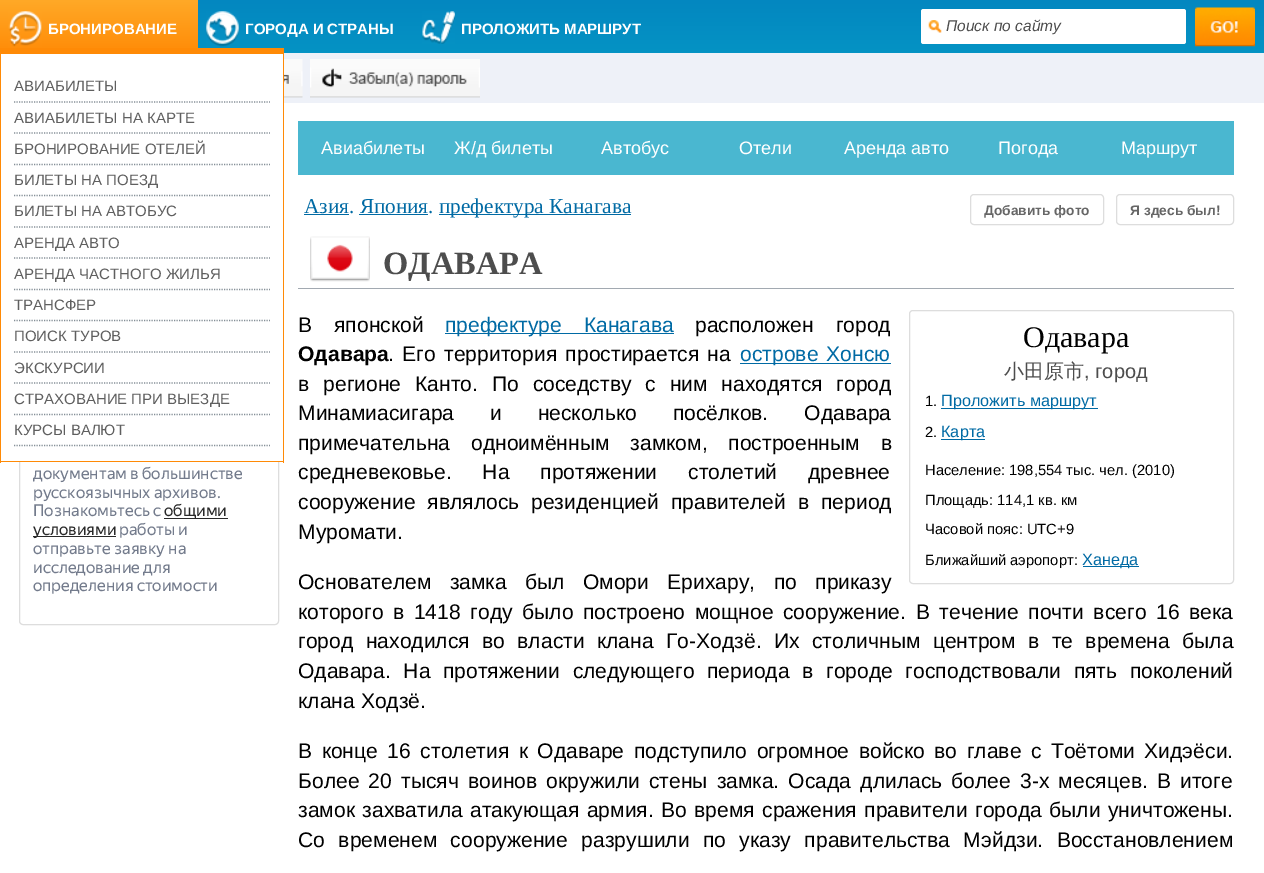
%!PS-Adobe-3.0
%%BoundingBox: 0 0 1264 873
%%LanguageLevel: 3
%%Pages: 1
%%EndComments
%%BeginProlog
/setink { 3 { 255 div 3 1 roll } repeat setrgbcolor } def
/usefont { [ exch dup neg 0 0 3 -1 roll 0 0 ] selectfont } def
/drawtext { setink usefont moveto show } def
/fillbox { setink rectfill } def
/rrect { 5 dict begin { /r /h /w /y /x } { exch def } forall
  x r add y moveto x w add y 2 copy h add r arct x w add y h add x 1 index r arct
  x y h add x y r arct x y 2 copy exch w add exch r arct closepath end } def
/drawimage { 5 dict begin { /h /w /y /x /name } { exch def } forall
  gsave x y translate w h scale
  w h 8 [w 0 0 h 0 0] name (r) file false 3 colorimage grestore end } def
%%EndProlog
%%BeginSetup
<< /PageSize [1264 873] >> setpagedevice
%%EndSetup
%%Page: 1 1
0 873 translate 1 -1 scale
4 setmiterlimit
0 0 1264 873 238 241 248 fillbox
gsave 198 0 moveto 1264 0 lineto 1264 53 lineto 198 53 lineto closepath clip newpath
<< /ShadingType 2 /ColorSpace /DeviceRGB /Coords [0 0 0 53] /Extend [true true] /Function << /FunctionType 2 /Domain [0 1] /C0 [0.012 0.529 0.753] /C1 [0.02 0.576 0.769] /N 1 >> >> shfill grestore
gsave 0 0 moveto 198 0 lineto 198 48 lineto 0 48 lineto closepath clip newpath
<< /ShadingType 2 /ColorSpace /DeviceRGB /Coords [0 0 0 55] /Extend [true true] /Function << /FunctionType 2 /Domain [0 1] /C0 [1 0.663 0.153] /C1 [1 0.541 0.024] /N 1 >> >> shfill grestore
(assets/img1.rgb) 8 11 34 36 drawimage
(БРОНИРОВАНИЕ) 48 34 /LiberationSans-Bold 15 255 255 255 drawtext
0 103 1264 770 255 255 255 fillbox
221 221 221 setink
19.5 121.5 259 503 3.5 rrect stroke
1 54 282 407 255 255 255 fillbox
0 48 284 6 255 138 6 fillbox
283 48 1 415 255 138 6 fillbox
0 461 284 1 255 138 6 fillbox
0 48 1 415 255 138 6 fillbox
133 143 151 setink
1.2 setlinewidth
[1.25 1.25] 0 setdash
14 102 moveto 270 102 lineto stroke
(АВИАБИЛЕТЫ) 14 91 /LiberationSans-Regular 15 95 95 95 drawtext
133 143 151 setink
14 133 moveto 270 133 lineto stroke
(АВИАБИЛЕТЫ НА КАРТЕ) 14 123 /LiberationSans-Regular 15 95 95 95 drawtext
133 143 151 setink
14 164.5 moveto 270 164.5 lineto stroke
(БРОНИРОВАНИЕ ОТЕЛЕЙ) 14 154 /LiberationSans-Regular 15 95 95 95 drawtext
133 143 151 setink
14 195.5 moveto 270 195.5 lineto stroke
(БИЛЕТЫ НА ПОЕЗД) 14 185 /LiberationSans-Regular 15 95 95 95 drawtext
133 143 151 setink
14 227 moveto 270 227 lineto stroke
(БИЛЕТЫ НА АВТОБУС) 14 216 /LiberationSans-Regular 15 95 95 95 drawtext
133 143 151 setink
14 258 moveto 270 258 lineto stroke
(АРЕНДА АВТО) 14 248 /LiberationSans-Regular 15 95 95 95 drawtext
133 143 151 setink
14 289.5 moveto 270 289.5 lineto stroke
(АРЕНДА ЧАСТНОГО ЖИЛЬЯ) 14 279 /LiberationSans-Regular 15 95 95 95 drawtext
133 143 151 setink
14 320.5 moveto 270 320.5 lineto stroke
(ТРАНСФЕР) 14 310 /LiberationSans-Regular 15 95 95 95 drawtext
133 143 151 setink
14 352 moveto 270 352 lineto stroke
(ПОИСК ТУРОВ) 14 341 /LiberationSans-Regular 15 95 95 95 drawtext
133 143 151 setink
14 383 moveto 270 383 lineto stroke
(ЭКСКУРСИИ) 14 373 /LiberationSans-Regular 15 95 95 95 drawtext
133 143 151 setink
14 414.5 moveto 270 414.5 lineto stroke
(СТРАХОВАНИЕ ПРИ ВЫЕЗДЕ) 14 404 /LiberationSans-Regular 15 95 95 95 drawtext
133 143 151 setink
14 445.5 moveto 270 445.5 lineto stroke
(КУРСЫ ВАЛЮТ) 14 435 /LiberationSans-Regular 15 95 95 95 drawtext
(assets/img2.rgb) 206 11 33 36 drawimage
(ГОРОДА И СТРАНЫ) 245 34 /LiberationSans-Bold 15 255 255 255 drawtext
(assets/img3.rgb) 422 11 33 33 drawimage
(ПРОЛОЖИТЬ МАРШРУТ) 461 34 /LiberationSans-Bold 15 255 255 255 drawtext
921 9 265 35 2.5 rrect fill
(assets/img4.rgb) 928 20 14 13 drawimage
(Поиск по сайту) 946 31 /LiberationSans-Italic 15.5 77 77 77 drawtext
(assets/img5.rgb) 1195 7 60 40 drawimage
(assets/img6.rgb) 284 59 19 39 drawimage
(assets/img7.rgb) 310 59 170 39 drawimage
(документам в большинстве) 33 479 /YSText-Regular 16.25 115 123 140 drawtext
(русскоязычных архивов.) 33 498 /YSText-Regular 16.25 115 123 140 drawtext
(Познакомьтесь с) 33 516 /YSText-Regular 16.25 115 123 140 drawtext
164 518 64 1 41 41 41 fillbox
(общими) 164 516 /YSText-Regular 16.25 41 41 41 drawtext
33 536 83 1 41 41 41 fillbox
(условиями) 33 535 /YSText-Regular 16.25 41 41 41 drawtext
(работы и) 119 535 /YSText-Regular 16.25 115 123 140 drawtext
(отправьте заявку на) 33 554 /YSText-Regular 16.25 115 123 140 drawtext
(исследование для) 33 573 /YSText-Regular 16.25 115 123 140 drawtext
(определения стоимости) 33 591 /YSText-Regular 16.25 115 123 140 drawtext
298 121 936 54 74 183 208 fillbox
(Авиабилеты) 321 154 /LiberationSans-Regular 18 255 255 255 drawtext
(Ж/д билеты) 454 154 /LiberationSans-Regular 18 255 255 255 drawtext
(Автобус) 601 154 /LiberationSans-Regular 18 255 255 255 drawtext
(Отели) 739 154 /LiberationSans-Regular 18 255 255 255 drawtext
(Аренда авто) 844 154 /LiberationSans-Regular 18 255 255 255 drawtext
(Погода) 998 154 /LiberationSans-Regular 18 255 255 255 drawtext
(Маршрут) 1121 154 /LiberationSans-Regular 18 255 255 255 drawtext
(Азия. Япония.) 304 213 /LiberationSerif-Regular 21.25 0 106 164 drawtext
304 214 45 1 0 106 164 fillbox
439 214 192 1 0 106 164 fillbox
(префектура Канагава) 439 213 /LiberationSerif-Regular 21.25 0 106 164 drawtext
359 214 69 1 0 106 164 fillbox
221 221 221 setink
1 setlinewidth
[] 0 setdash
970.5 194.5 133 30 3.5 rrect stroke
(Добавить фото) 984 215 /LiberationSans-Bold 13.75 102 102 102 drawtext
221 221 221 setink
1116.5 194.5 117 30 3.5 rrect stroke
(Я здесь был!) 1130 215 /LiberationSans-Bold 13.75 102 102 102 drawtext
(assets/img8.rgb) 310 236 60 46 drawimage
298 288 936 1 162 169 177 fillbox
(ОДАВАРА) 383 274 /LiberationSerif-Bold 32.5 77 77 77 drawtext
/LiberationSans-Regular 21.1 usefont
0 0 0 setink
298 332 moveto 16 0 32 (В японской) widthshow
445 333 229 1 0 106 164 fillbox
445 332 moveto 16 0 32 (префектуре Канагава) widthshow
0 0 0 setink
695 332 moveto 16 0 32 (расположен город) widthshow
(Одавара) 298 361 /LiberationSans-Bold 21.1 0 0 0 drawtext
/LiberationSans-Regular 21.1 usefont
388 361 moveto 2.5 0 32 (. Его территория простирается на) widthshow
740 363 151 1 0 106 164 fillbox
740 361 moveto 2 0 32 (острове Хонсю) widthshow
0 0 0 setink
298 391 moveto 8 0 32 (в регионе Канто. По соседству с ним находятся город) widthshow
298 420 moveto 30 0 32 (Минамиасигара и несколько посёлков. Одавара) widthshow
298 450 moveto 15 0 32 (примечательна одноимённым замком, построенным в) widthshow
298 479 moveto 25 0 32 (средневековье. На протяжении столетий древнее) widthshow
298 509 moveto 6 0 32 (сооружение являлось резиденцией правителей в период) widthshow
(Муромати.) 298 539 /LiberationSans-Regular 21.1 0 0 0 drawtext
221 221 221 setink
909.5 310.5 324 273 3.5 rrect stroke
(Одавара) 1023 347 /LiberationSerif-Regular 30 0 0 0 drawtext
(小田原市) 1004 378 /WenQuanYiZenHei-Medium 20 77 77 77 drawtext
(, город) 1084 378 /LiberationSans-Regular 20 77 77 77 drawtext
(1.) 925 406 /LiberationSans-Regular 14.75 0 0 0 drawtext
941 408 157 1 0 106 164 fillbox
(Проложить маршрут) 941 406 /LiberationSans-Regular 16.25 0 106 164 drawtext
(2.) 925 437 /LiberationSans-Regular 14.75 0 0 0 drawtext
941 439 44 1 0 106 164 fillbox
(Карта) 941 437 /LiberationSans-Regular 16.25 0 106 164 drawtext
(Население: 198,554 тыс. чел. \(2010\)) 925 475 /LiberationSans-Regular 14.75 0 0 0 drawtext
(Площадь: 114,1 кв. км) 925 505 /LiberationSans-Regular 14.75 0 0 0 drawtext
(Часовой пояс: UTC+9) 925 534 /LiberationSans-Regular 14.75 0 0 0 drawtext
(Ближайший аэропорт:) 925 565 /LiberationSans-Regular 14.75 0 0 0 drawtext
1083 566 56 1 0 106 164 fillbox
(Ханеда) 1082 565 /LiberationSans-Regular 16.25 0 106 164 drawtext
/LiberationSans-Regular 21.1 usefont
0 0 0 setink
298 589 moveto 12.5 0 32 (Основателем замка был Омори Ерихару, по приказу) widthshow
298 619 moveto 3.75 0 32 (которого в 1418 году было построено мощное сооружение. В течение почти всего 16 века) widthshow
298 648 moveto 6.5 0 32 (город находился во власти клана Го-Ходзё. Их столичным центром в те времена была) widthshow
298 678 moveto 6.75 0 32 (Одавара. На протяжении следующего периода в городе господствовали пять поколений) widthshow
(клана Ходзё.) 298 708 /LiberationSans-Regular 21.1 0 0 0 drawtext
298 758 moveto 3.6 0 32 (В конце 16 столетия к Одаваре подступило огромное войско во главе с Тоётоми Хидэёси.) widthshow
298 788 moveto 3.25 0 32 (Более 20 тысяч воинов окружили стены замка. Осада длилась более 3-х месяцев. В итоге) widthshow
298 817 moveto 1.5 0 32 (замок захватила атакующая армия. Во время сражения правители города были уничтожены.) widthshow
298 847 moveto 7.5 0 32 (Со временем сооружение разрушили по указу правительства Мэйдзи. Восстановлением) widthshow
showpage
%%EOF
